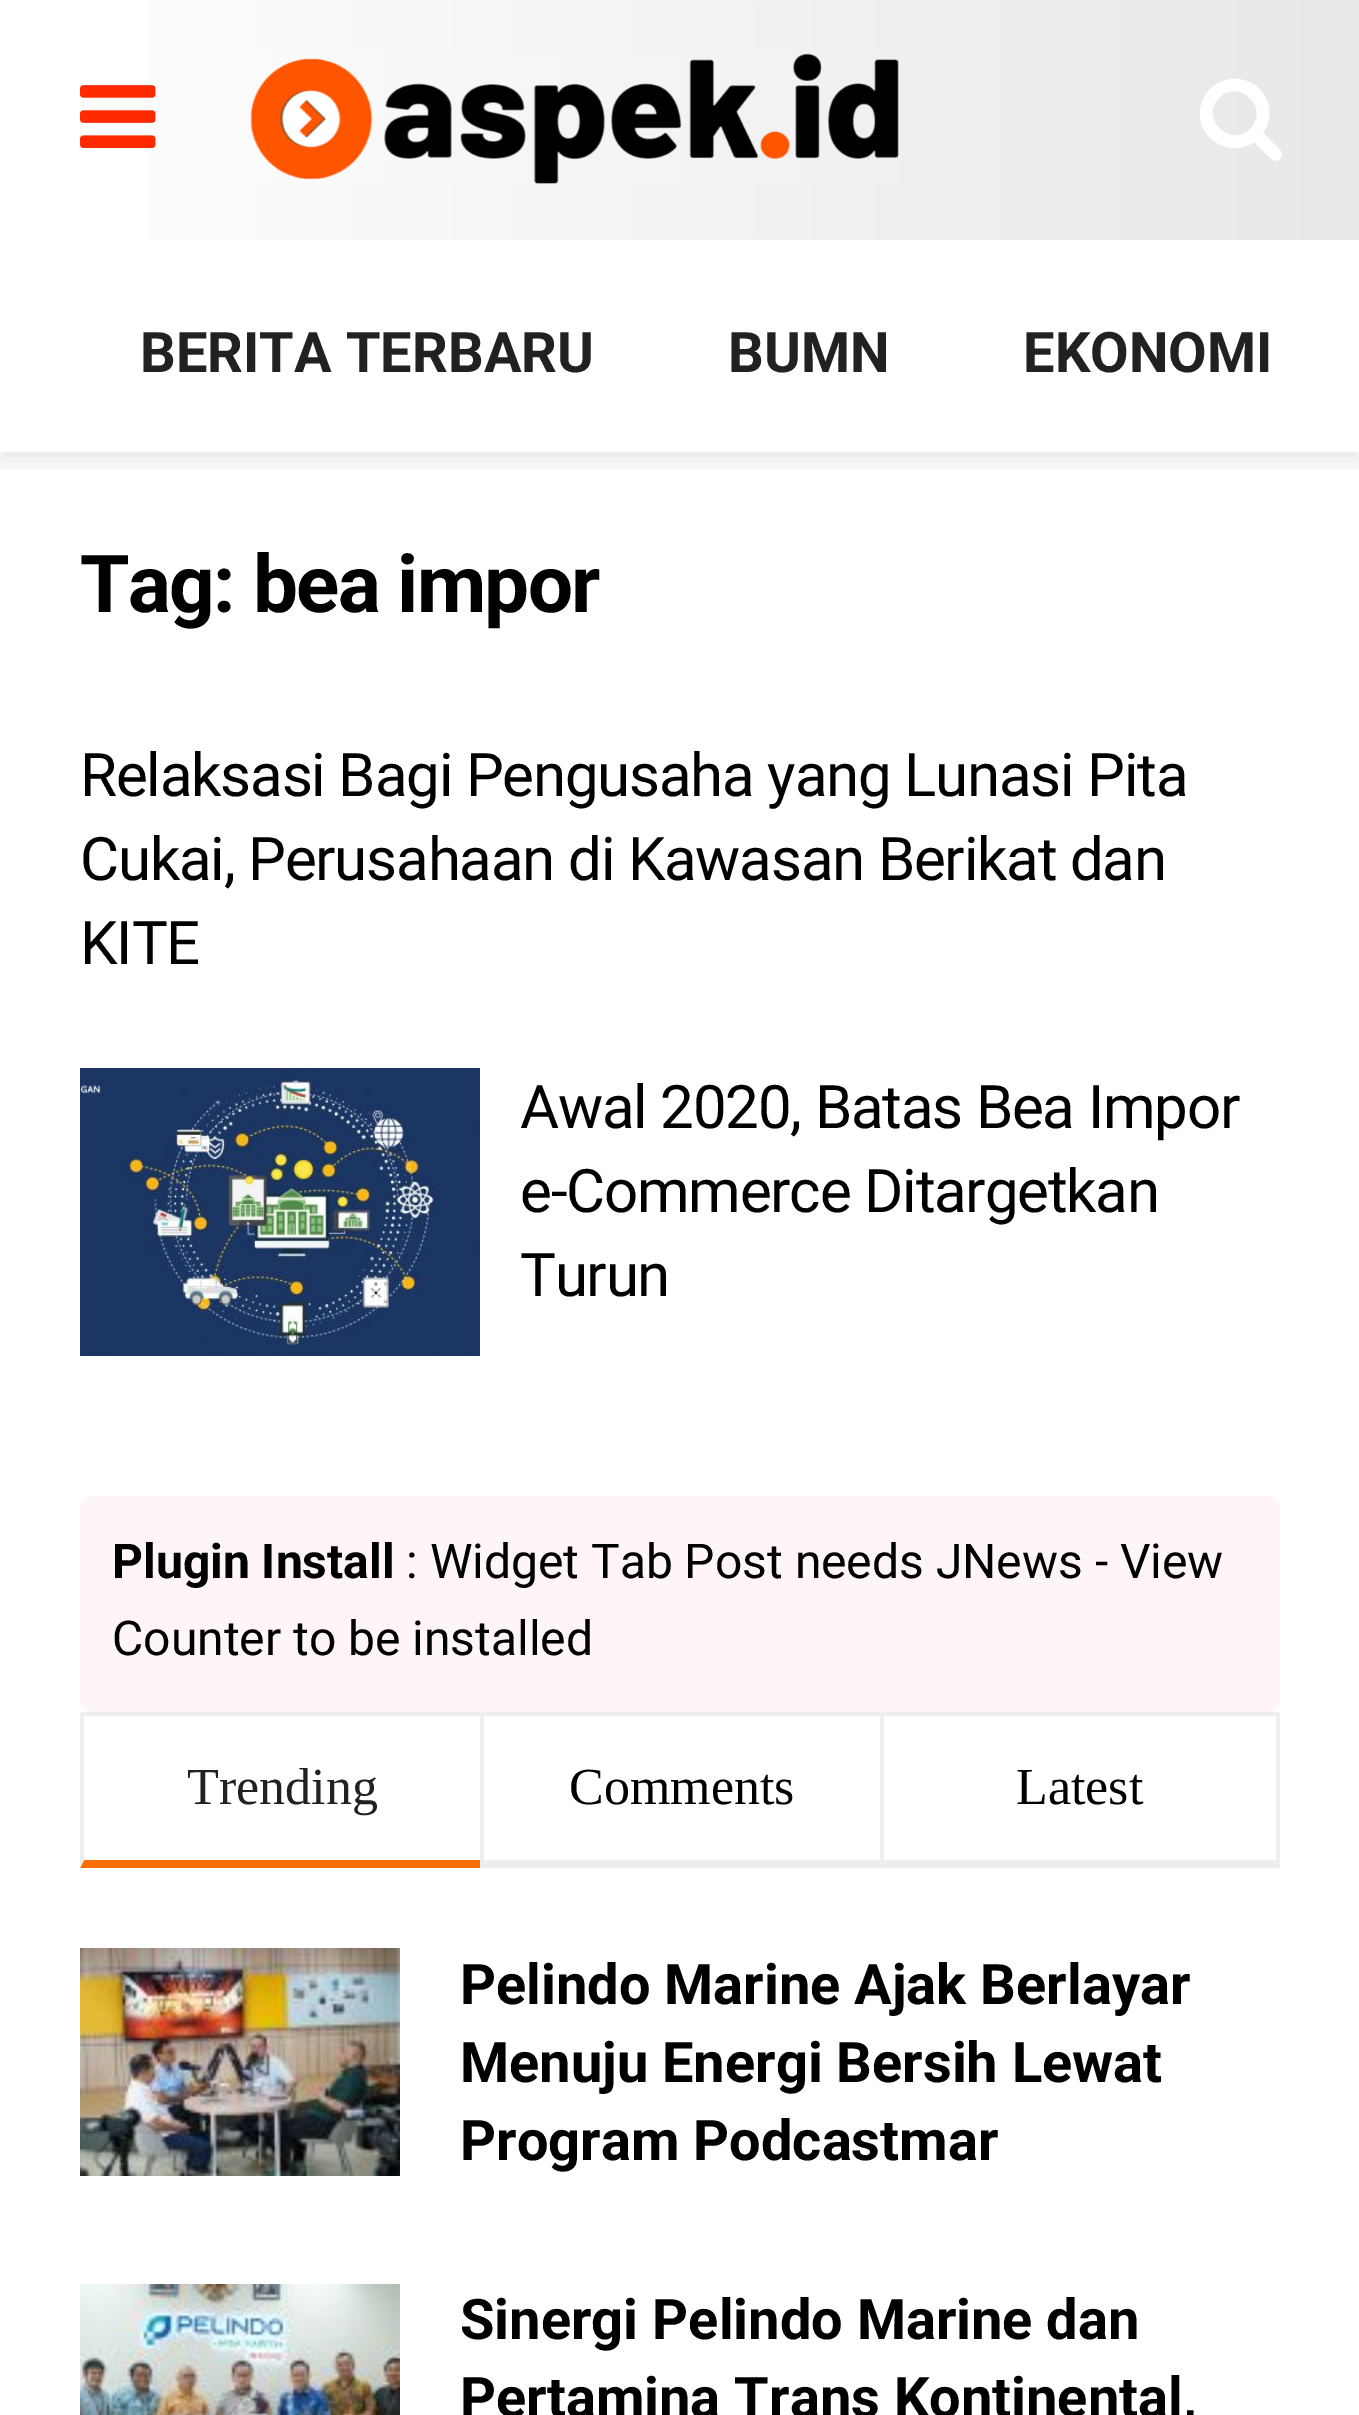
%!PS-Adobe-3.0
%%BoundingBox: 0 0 1359 2415
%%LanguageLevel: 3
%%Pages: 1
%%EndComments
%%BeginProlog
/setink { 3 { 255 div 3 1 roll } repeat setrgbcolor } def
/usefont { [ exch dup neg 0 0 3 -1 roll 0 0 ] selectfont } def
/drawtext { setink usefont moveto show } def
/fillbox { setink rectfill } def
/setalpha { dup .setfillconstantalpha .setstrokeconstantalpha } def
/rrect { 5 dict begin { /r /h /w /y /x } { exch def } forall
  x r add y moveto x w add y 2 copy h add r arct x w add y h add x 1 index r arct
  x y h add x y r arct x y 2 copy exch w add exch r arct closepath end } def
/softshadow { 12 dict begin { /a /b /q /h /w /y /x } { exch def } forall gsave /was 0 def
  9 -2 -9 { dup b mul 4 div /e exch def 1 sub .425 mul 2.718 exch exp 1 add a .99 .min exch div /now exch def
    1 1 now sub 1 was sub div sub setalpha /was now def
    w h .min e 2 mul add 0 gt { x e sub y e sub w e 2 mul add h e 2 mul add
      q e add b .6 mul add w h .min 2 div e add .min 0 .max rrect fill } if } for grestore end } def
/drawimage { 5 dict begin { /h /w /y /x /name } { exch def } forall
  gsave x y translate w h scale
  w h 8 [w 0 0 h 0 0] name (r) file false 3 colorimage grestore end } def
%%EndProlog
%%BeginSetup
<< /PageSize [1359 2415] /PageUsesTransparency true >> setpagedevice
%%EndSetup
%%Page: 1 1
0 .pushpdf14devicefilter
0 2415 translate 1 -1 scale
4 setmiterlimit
0 0 1359 2415 255 255 255 fillbox
gsave
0 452 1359 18 rectclip
0 0 0 setink
0 8 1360 452 0 12 0.1 softshadow
grestore
gsave 148 0 moveto 1359 0 lineto 1359 240 lineto 148 240 lineto closepath clip newpath
<< /ShadingType 2 /ColorSpace /DeviceRGB /Coords [0 120 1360 120] /Extend [true true] /Function << /FunctionType 2 /Domain [0 1] /C0 [1 1 1] /C1 [0.91 0.91 0.91] /N 1 >> >> shfill grestore
(assets/img1.rgb) 80 85 76 63 drawimage
(assets/img2.rgb) 250 53 649 131 drawimage
1250 129 moveto 1271 109 1239 77 1219 98 curveto 1199 118 1230 149 1250 129 curveto closepath 1282 154 moveto 1282 156 1281 158 1279 160 curveto 1273 163 1269 156 1265 153 curveto 1254 142 lineto 1237 154 1212 147 1203 128 curveto 1200 121 1199 113 1201 105 curveto 1210 71 1257 70 1268 103 curveto 1271 113 1269 124 1263 133 curveto 1280 150 lineto 1281 151 1282 153 1282 154 curveto closepath fill
(BERITA TERBARU) 140 372 /Roboto-Bold 56 33 33 33 drawtext
(BUMN) 728 372 /Roboto-Bold 56 33 33 33 drawtext
(EKONOMI) 1023 372 /Roboto-Bold 56 33 33 33 drawtext
/Roboto-Bold 80 usefont
0 0 0 setink
80 612 moveto -1.6 0 (Tag: bea impor) ashow
/Roboto-Regular 60 usefont
80 796 moveto -1.2 0 (Relaksasi Bagi Pengusaha yang Lunasi Pita) ashow
80 880 moveto -1.2 0 (Cukai, Perusahaan di Kawasan Berikat dan) ashow
80 964 moveto -1.2 0 (KITE) ashow
(assets/img3.rgb) 80 1068 400 288 drawimage
520 1128 moveto -1.2 0 (Awal 2020, Batas Bea Impor) ashow
520 1212 moveto -1.2 0 (e-Commerce Ditargetkan) ashow
520 1296 moveto -1.2 0 (Turun) ashow
255 245 246 setink
80 1496 1200 216 12 rrect fill
(Plugin Install) 112 1578 /Roboto-Bold 48 0 0 0 drawtext
(: Widget Tab Post needs JNews - View) 406 1578 /Roboto-Regular 48 0 0 0 drawtext
(Counter to be installed) 112 1655 /Roboto-Regular 48 0 0 0 drawtext
80 1712 1200 4 238 238 238 fillbox
255 110 0 setink
480 1868 moveto 80 1868 lineto 84 1860 lineto 480 1860 lineto closepath fill
238 238 238 setink
80 1868 moveto 80 1712 lineto 84 1716 lineto 84 1860 lineto closepath fill
(Trending) 187 1804 /LiberationSerif-Regular 52 33 33 33 drawtext
480 1860 400 8 238 238 238 fillbox
480 1712 4 156 238 238 238 fillbox
(Comments) 569 1804 /LiberationSerif-Regular 52 0 0 0 drawtext
1276 1712 4 156 238 238 238 fillbox
880 1860 400 8 238 238 238 fillbox
880 1712 4 156 238 238 238 fillbox
(Latest) 1016 1804 /LiberationSerif-Regular 52 0 0 0 drawtext
(assets/img4.rgb) 80 1948 320 228 drawimage
(Pelindo Marine Ajak Berlayar) 460 2004 /Roboto-Bold 56 0 0 0 drawtext
(Menuju Energi Bersih Lewat) 460 2082 /Roboto-Bold 56 0 0 0 drawtext
(Program Podcastmar) 460 2160 /Roboto-Bold 56 0 0 0 drawtext
(assets/img5.rgb) 80 2284 320 131 drawimage
(Sinergi Pelindo Marine dan) 460 2339 /Roboto-Bold 56 0 0 0 drawtext
(Pertamina Trans Kontinental,) 460 2417 /Roboto-Bold 56 0 0 0 drawtext
.poppdf14devicefilter showpage
%%EOF
